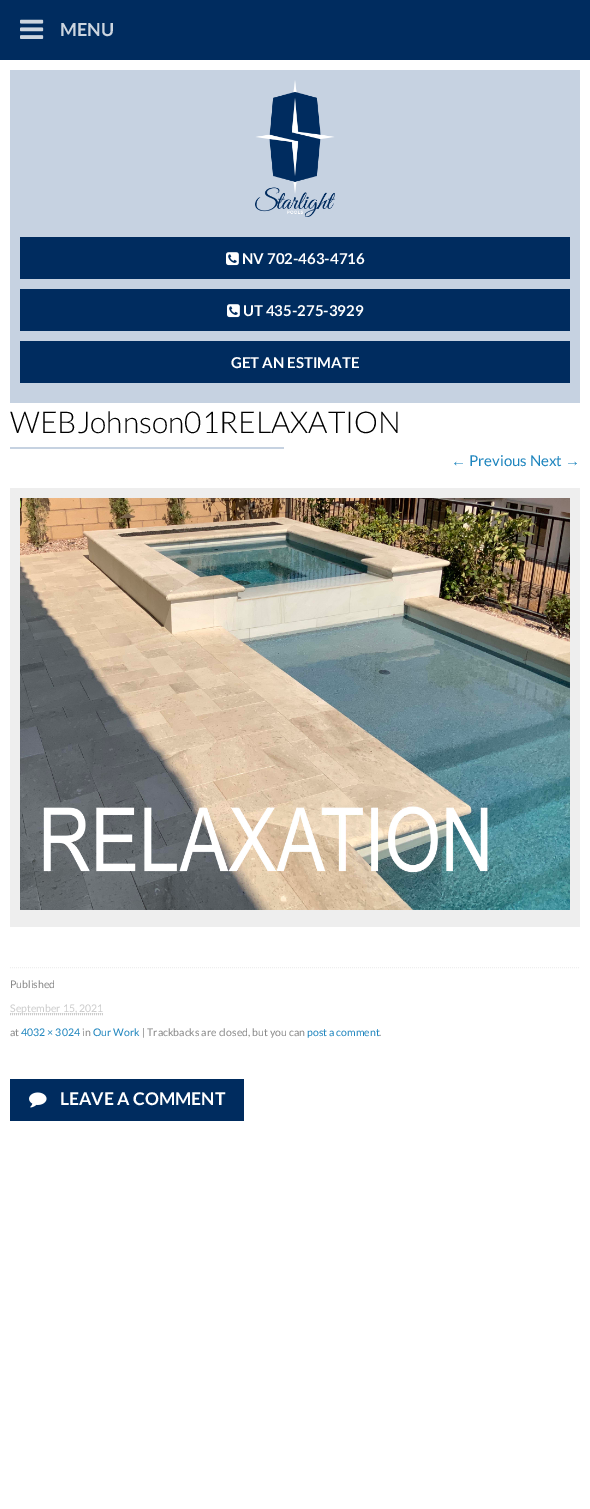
%!PS-Adobe-3.0
%%BoundingBox: 0 0 590 1509
%%LanguageLevel: 3
%%Pages: 1
%%EndComments
%%BeginProlog
/setink { 3 { 255 div 3 1 roll } repeat setrgbcolor } def
/usefont { [ exch dup neg 0 0 3 -1 roll 0 0 ] selectfont } def
/drawtext { setink usefont moveto show } def
/fillbox { setink rectfill } def
/drawimage { 5 dict begin { /h /w /y /x /name } { exch def } forall
  gsave x y translate w h scale
  w h 8 [w 0 0 h 0 0] name (r) file false 3 colorimage grestore end } def
%%EndProlog
%%BeginSetup
<< /PageSize [590 1509] >> setpagedevice
%%EndSetup
%%Page: 1 1
0 1509 translate 1 -1 scale
4 setmiterlimit
0 0 590 1509 0 44 95 fillbox
(assets/img1.rgb) 20 19 24 20 drawimage
(MENU) 60 36 /Lato-Bold 18 204 213 223 drawtext
0 60 590 1449 255 255 255 fillbox
10 70 570 333 198 210 225 fillbox
(assets/img2.rgb) 255 80 80 137 drawimage
20 237 550 42 0 44 95 fillbox
(assets/img3.rgb) 226 252 13 14 drawimage
(NV 702-463-4716) 242 264 /Lato-Bold 15 255 255 255 drawtext
20 289 550 42 0 44 95 fillbox
(assets/img3.rgb) 227 304 13 14 drawimage
(UT 435-275-3929) 243 316 /Lato-Bold 15 255 255 255 drawtext
20 341 550 42 0 44 95 fillbox
(GET AN ESTIMATE) 231 368 /Lato-Bold 15 255 255 255 drawtext
(WEBJohnson01RELAXATION) 10 433 /Lato-Light 30 0 0 0 drawtext
10 447 274 2 198 210 225 fillbox
(←) 451 466 /LiberationSans-Regular 15 30 133 190 drawtext
(Previous Next) 469 466 /Lato-Regular 15 30 133 190 drawtext
(→) 565 466 /LiberationSans-Regular 15 30 133 190 drawtext
10 488 570 439 238 238 238 fillbox
(assets/img4.rgb) 20 498 550 412 drawimage
[1 1] 0 setdash
10 967.5 moveto 580 967.5 lineto stroke
(Published) 10 988 /Lato-Regular 10.5 136 136 136 drawtext
204 204 204 setink
10 1013.5 moveto 103.5 1013.5 lineto stroke
(September 15, 2021) 10 1012 /Lato-Regular 10.5 204 204 204 drawtext
10 1014.5 moveto 103 1014.5 lineto stroke
(at) 10 1036 /Lato-Regular 10.5 136 136 136 drawtext
(4032 × 3024) 21 1036 /Lato-Regular 10.5 30 133 190 drawtext
(in) 82 1036 /Lato-Regular 10.5 136 136 136 drawtext
(Our Work) 93 1036 /Lato-Regular 10.5 30 133 190 drawtext
(| Trackbacks are closed, but you can) 142 1036 /Lato-Regular 10.5 136 136 136 drawtext
(post a comment) 307 1036 /Lato-Regular 10.5 30 133 190 drawtext
(.) 379 1036 /Lato-Regular 10.5 136 136 136 drawtext
10 1079 234 42 0 44 95 fillbox
(assets/img5.rgb) 29 1092 18 16 drawimage
(LEAVE A COMMENT) 60 1105 /Lato-Bold 17.5 255 255 255 drawtext
showpage
%%EOF
